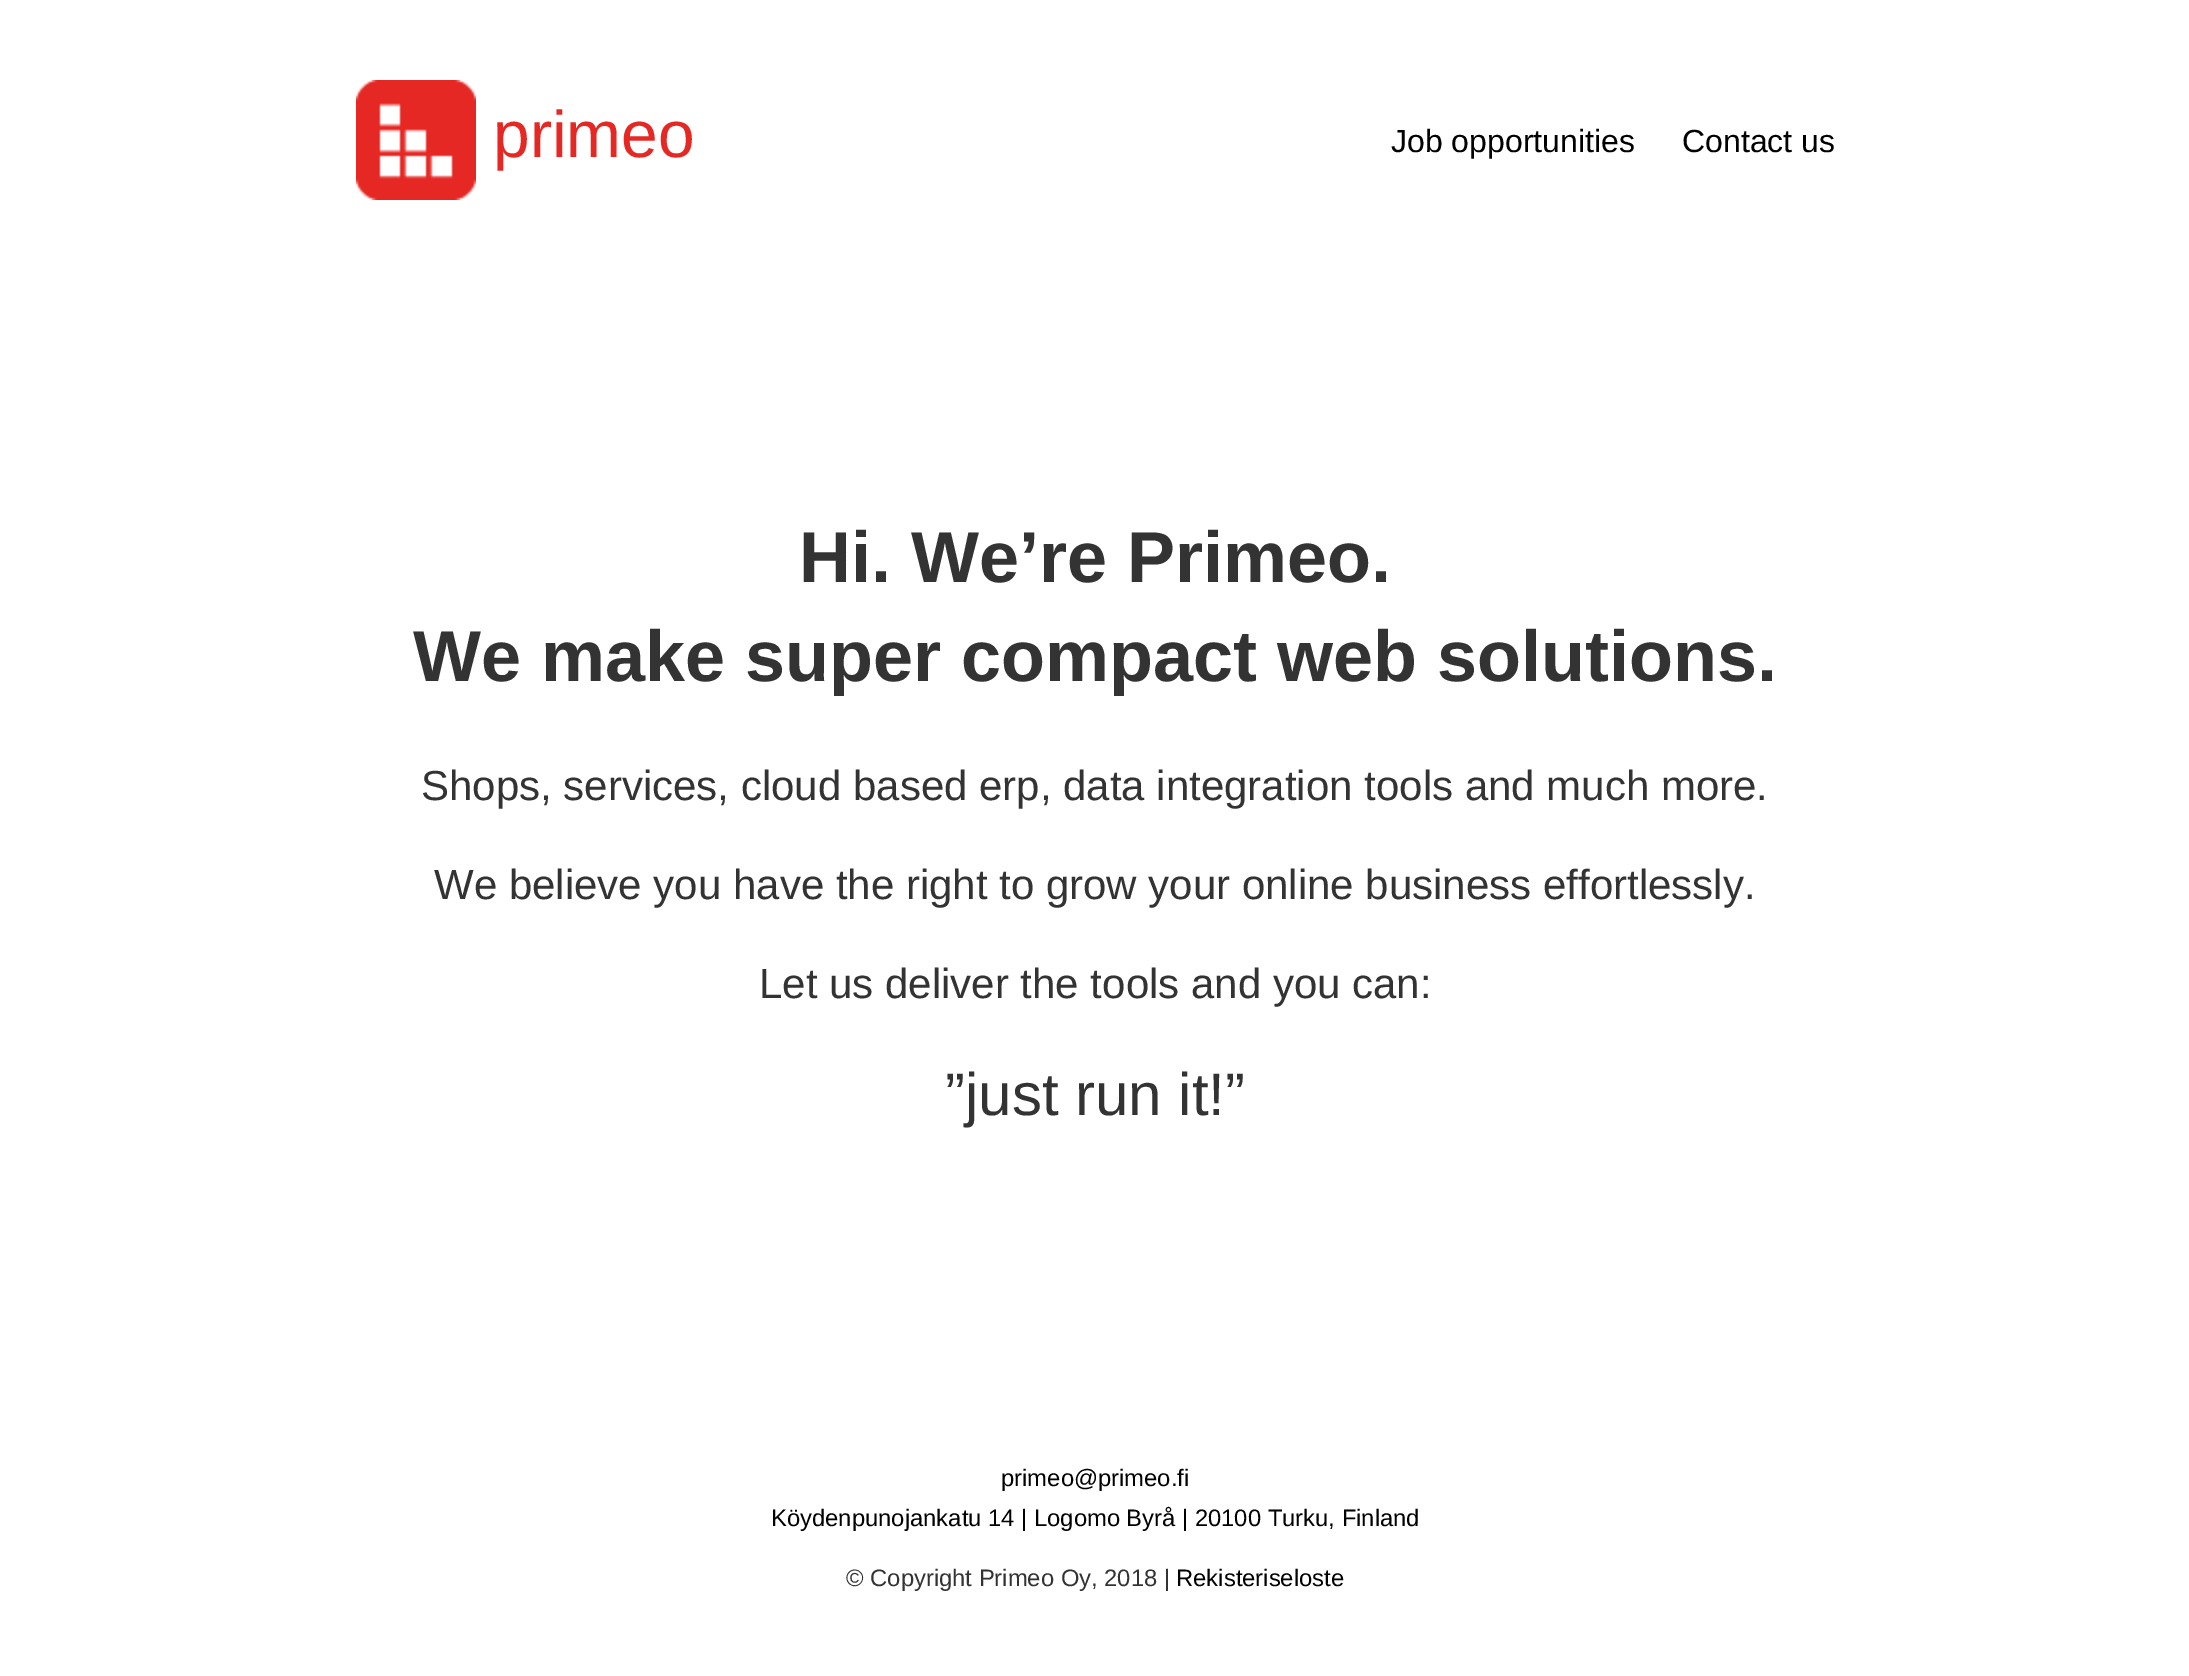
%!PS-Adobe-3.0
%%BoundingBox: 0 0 2189 1676
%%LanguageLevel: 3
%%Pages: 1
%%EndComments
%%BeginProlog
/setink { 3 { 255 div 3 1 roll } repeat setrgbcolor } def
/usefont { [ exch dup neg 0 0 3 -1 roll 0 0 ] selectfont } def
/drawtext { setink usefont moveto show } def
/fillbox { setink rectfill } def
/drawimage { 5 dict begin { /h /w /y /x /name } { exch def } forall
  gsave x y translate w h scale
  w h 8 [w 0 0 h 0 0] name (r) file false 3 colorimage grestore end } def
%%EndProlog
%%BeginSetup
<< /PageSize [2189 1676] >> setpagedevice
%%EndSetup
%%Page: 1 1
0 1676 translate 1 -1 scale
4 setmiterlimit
0 0 2189 1676 255 255 255 fillbox
(assets/img1.rgb) 356 80 120 120 drawimage
(primeo) 493 157 /LiberationSans-Regular 66 229 40 36 drawtext
(Job opportunities) 1391 152 /LiberationSans-Regular 32 0 0 0 drawtext
(Contact us) 1682 152 /LiberationSans-Regular 32 0 0 0 drawtext
(Hi. We’re Primeo.) 799 582 /LiberationSans-Bold 72 51 51 51 drawtext
(We make super compact web solutions.) 413 681 /LiberationSans-Bold 72 51 51 51 drawtext
(Shops, services, cloud based erp, data integration tools and much more.) 421 800 /LiberationSans-Regular 42 51 51 51 drawtext
(We believe you have the right to grow your online business effortlessly.) 434 899 /LiberationSans-Regular 42 51 51 51 drawtext
(Let us deliver the tools and you can:) 759 998 /LiberationSans-Regular 42 51 51 51 drawtext
(”just run it!”) 945 1115 /LiberationSans-Regular 60 51 51 51 drawtext
(primeo@primeo.fi) 1001 1486 /LiberationSans-Regular 23.8 0 0 0 drawtext
(Köydenpunojankatu 14 | Logomo Byrå | 20100 Turku, Finland) 771 1526 /LiberationSans-Regular 23.8 0 0 0 drawtext
(© Copyright Primeo Oy, 2018 |) 846 1586 /LiberationSans-Regular 23.8 51 51 51 drawtext
(Rekisteriseloste) 1176 1586 /LiberationSans-Regular 23.8 0 0 0 drawtext
showpage
%%EOF
